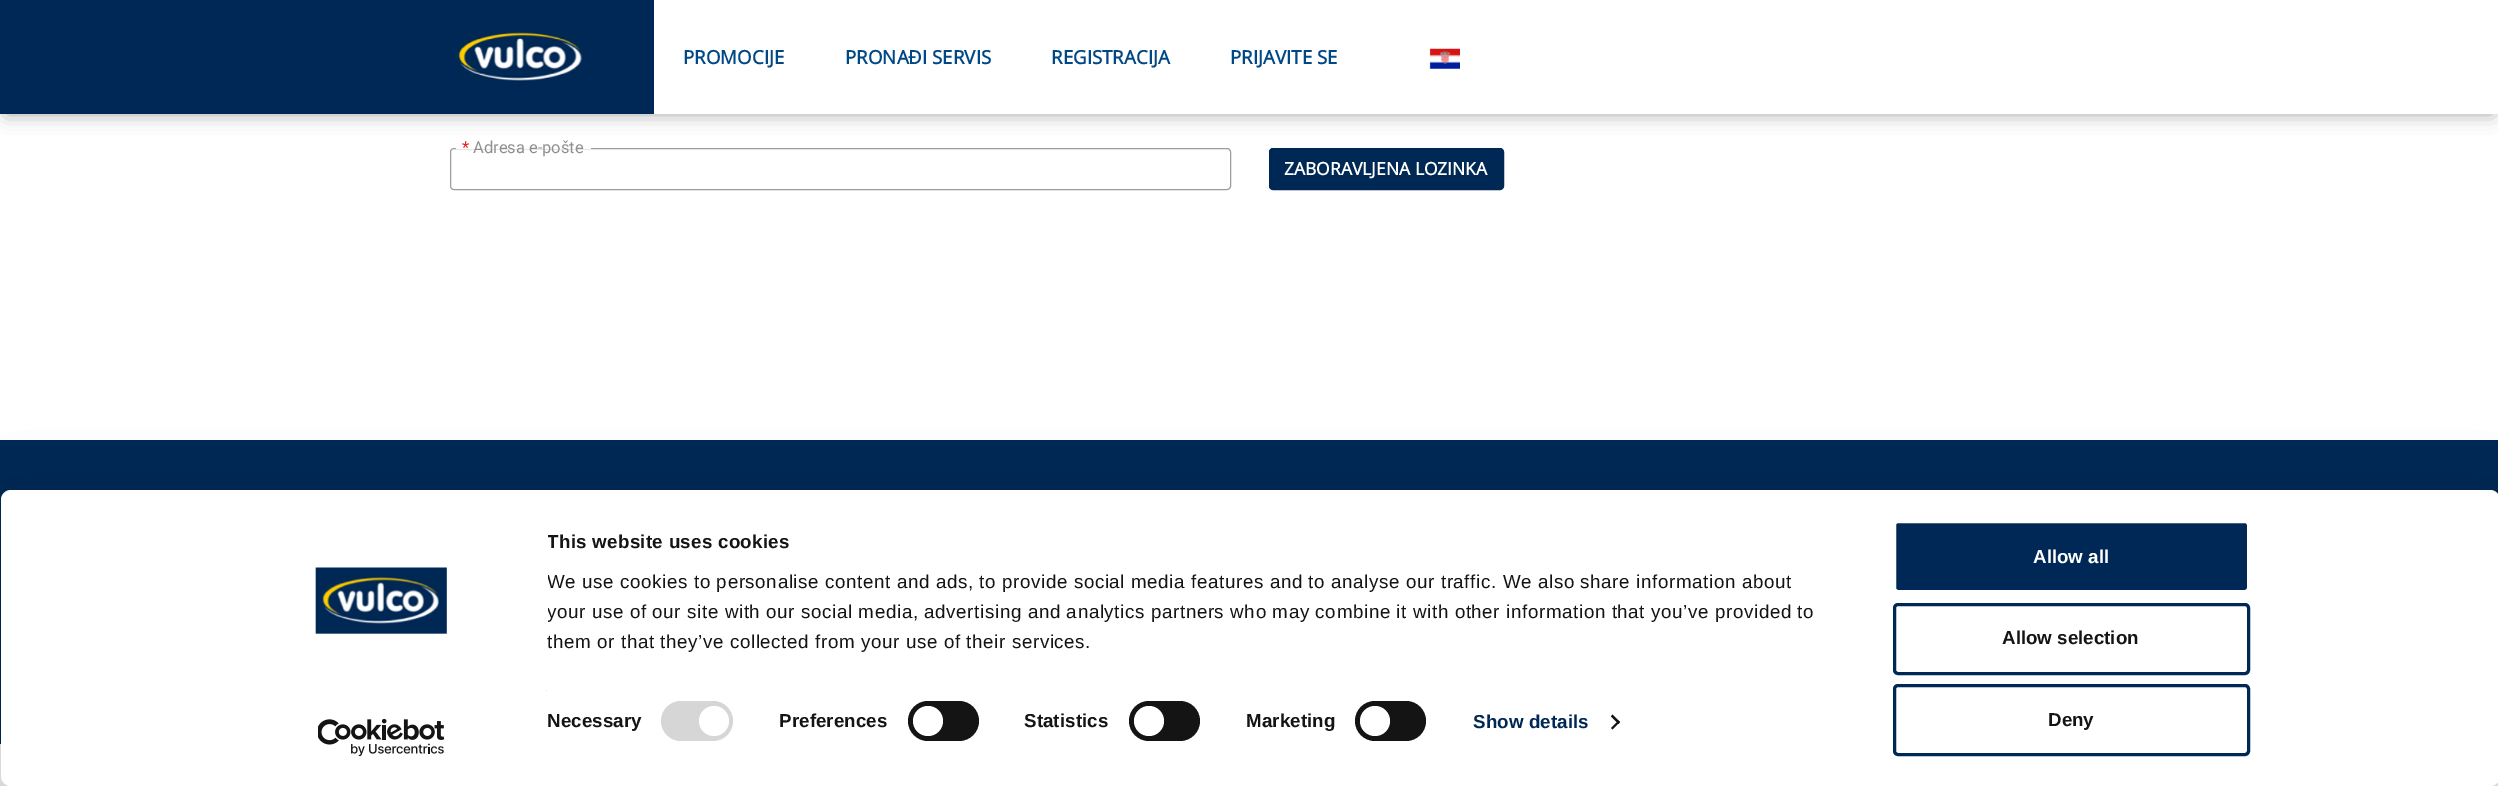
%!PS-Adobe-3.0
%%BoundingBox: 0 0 2498 786
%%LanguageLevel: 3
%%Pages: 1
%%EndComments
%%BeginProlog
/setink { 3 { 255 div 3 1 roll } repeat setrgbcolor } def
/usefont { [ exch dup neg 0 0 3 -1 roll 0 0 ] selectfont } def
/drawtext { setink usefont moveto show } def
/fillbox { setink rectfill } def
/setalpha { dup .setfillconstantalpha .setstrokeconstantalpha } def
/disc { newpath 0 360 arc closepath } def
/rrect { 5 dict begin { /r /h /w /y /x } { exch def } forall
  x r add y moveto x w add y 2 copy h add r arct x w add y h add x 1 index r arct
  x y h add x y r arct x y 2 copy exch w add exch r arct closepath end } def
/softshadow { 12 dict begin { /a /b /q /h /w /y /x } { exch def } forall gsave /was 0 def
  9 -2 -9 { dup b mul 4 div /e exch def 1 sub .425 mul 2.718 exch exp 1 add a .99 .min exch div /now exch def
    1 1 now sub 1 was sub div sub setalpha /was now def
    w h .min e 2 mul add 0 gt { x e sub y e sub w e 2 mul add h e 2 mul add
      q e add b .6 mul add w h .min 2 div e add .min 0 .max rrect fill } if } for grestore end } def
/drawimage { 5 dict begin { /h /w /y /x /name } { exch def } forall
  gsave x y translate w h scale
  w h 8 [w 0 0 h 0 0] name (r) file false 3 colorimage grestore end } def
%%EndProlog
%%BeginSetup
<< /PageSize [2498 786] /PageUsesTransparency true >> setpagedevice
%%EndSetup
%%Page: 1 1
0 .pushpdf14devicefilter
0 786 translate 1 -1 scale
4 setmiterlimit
0 0 2498 786 255 255 255 fillbox
163 164 171 setink
6 13 2487 101 0 9.5 1 softshadow
654 0 1844 114 255 255 255 fillbox
0 0 654 114 0 40 86 fillbox
(assets/img1.rgb) 458 32 124 50 drawimage
(PROMOCIJE) 683 64 /OpenSans-Bold 18.75 0 71 134 drawtext
(PRONAĐI SERVIS) 845 64 /OpenSans-Bold 18.75 0 71 134 drawtext
(REGISTRACIJA) 1051 64 /OpenSans-Bold 18.75 0 71 134 drawtext
(PRIJAVITE SE) 1230 64 /OpenSans-Bold 18.75 0 71 134 drawtext
(assets/img2.rgb) 1429 48 31 21 drawimage
157 157 157 setink
450.5 148.5 780 41 3.5 rrect stroke
456 148 135 1 255 255 255 fillbox
(*) 462 153 /Roboto-Regular 16.5 224 33 27 drawtext
(Adresa e-pošte) 473 153 /Roboto-Regular 16.5 144 143 143 drawtext
0 40 85 setink
1269.5 148.5 234 41 3.5 rrect gsave fill grestore
stroke
(ZABORAVLJENA LOZINKA) 1284 175 /OpenSans-Bold 17.5 255 255 255 drawtext
0 440 2498 304 0 40 86 fillbox
gsave
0 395 moveto 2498 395 lineto 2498 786 lineto 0 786 lineto closepath 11 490 moveto 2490 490 lineto 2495.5 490 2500 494.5 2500 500 curveto 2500 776 lineto 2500 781.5 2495.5 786 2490 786 curveto 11 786 lineto 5.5 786 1 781.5 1 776 curveto 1 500 lineto 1 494.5 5.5 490 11 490 curveto closepath eoclip newpath
0 0 0 setink
1 528 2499 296 10 44 0.3 softshadow
grestore
255 255 255 setink
1 490 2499 296 10 rrect fill
(assets/img3.rgb) 315 567 132 67 drawimage
(assets/img4.rgb) 318 719 127 37 drawimage
gsave
548 528 1310 128 rectclip
/LiberationSans-Bold 18.75 usefont
20 20 20 setink
547 548 moveto 0.3 0 (This website uses cookies) ashow
/LiberationSans-Regular 18.75 usefont
547 588 moveto 0.62 0 (We use cookies to personalise content and ads, to provide social media features and to analyse our traffic. We also share information about) ashow
547 618 moveto 0.62 0 (your use of our site with our social media, advertising and analytics partners who may combine it with other information that you’ve provided to) ashow
grestore
/LiberationSans-Regular 18.75 usefont
20 20 20 setink
547 648 moveto 0.62 0 (them or that they’ve collected from your use of their services.) ashow
546 690 1 1 229 229 229 fillbox
/LiberationSans-Bold 18.75 usefont
20 20 20 setink
547 727 moveto 0.1 0 (Necessary) ashow
214 214 214 setink
661 701 72 40 20 rrect fill
255 255 255 setink
714 721 15 disc fill
20 20 20 setink
779 727 moveto 0.1 0 (Preferences) ashow
908 701 71 40 20 rrect fill
255 255 255 setink
928 721 15 disc fill
20 20 20 setink
1024 727 moveto 0.1 0 (Statistics) ashow
1129 701 71 40 20 rrect fill
255 255 255 setink
1149 721 15 disc fill
20 20 20 setink
1246 727 moveto 0.1 0 (Marketing) ashow
1355 701 71 40 20 rrect fill
255 255 255 setink
1375 721 15 disc fill
0 40 86 setink
1473 728 moveto 0.1 0 (Show details) ashow
20 20 20 setink
1612.5 714.5 moveto 1620 722 lineto 1618.5 724 lineto 1611 716.5 lineto closepath fill
1618.5 720.5 moveto 1620 722 lineto 1612.5 729.5 lineto 1611 728 lineto closepath fill
0 40 86 setink
1894.5 521.5 354 70 3.5 rrect gsave fill grestore
255 255 255 setink
3 setlinewidth
stroke
(Allow all) 2033 563 /LiberationSans-Bold 18.75 255 255 255 drawtext
0 40 86 setink
1894.5 604.5 354 69 3.5 rrect stroke
(Allow selection) 2002 644 /LiberationSans-Bold 18.75 20 20 20 drawtext
0 40 86 setink
1894.5 685.5 354 69 3.5 rrect stroke
(Deny) 2048 726 /LiberationSans-Bold 18.75 20 20 20 drawtext
.poppdf14devicefilter showpage
%%EOF
